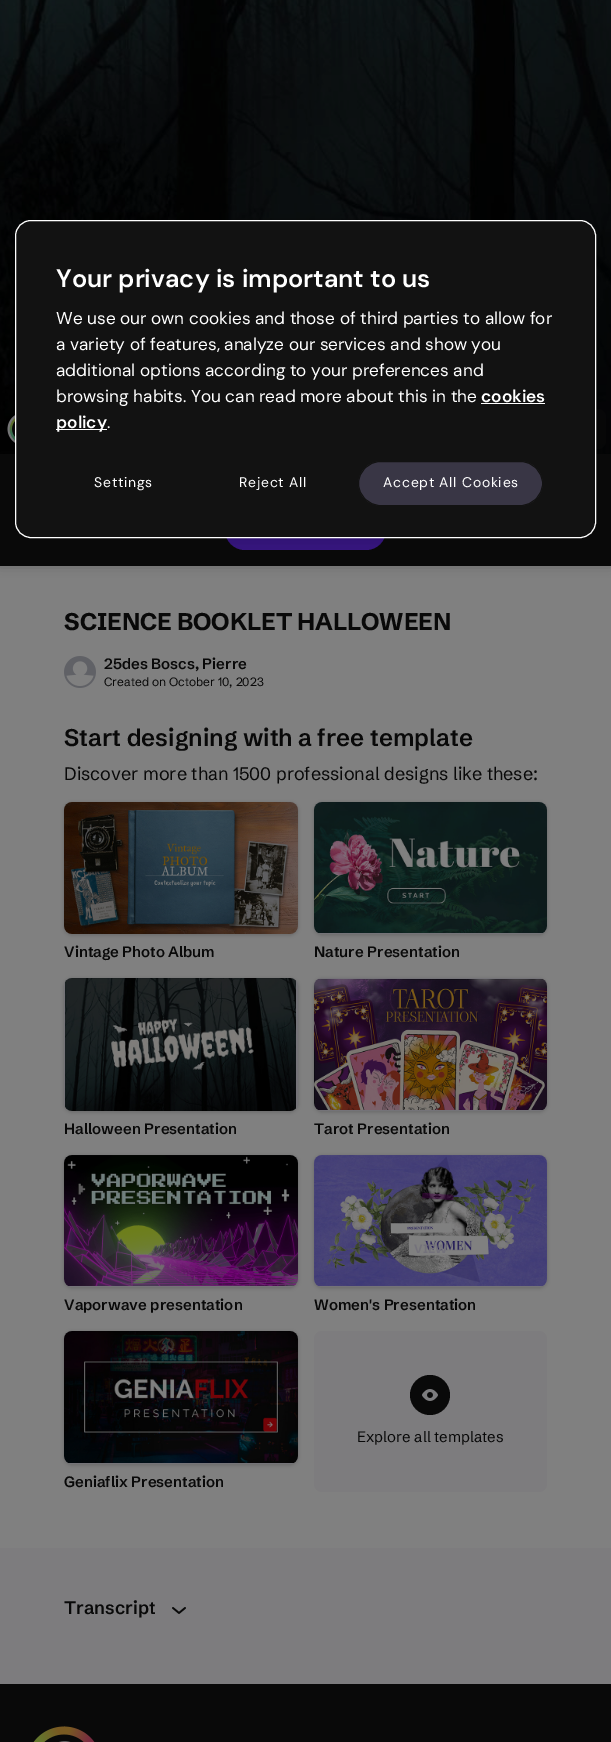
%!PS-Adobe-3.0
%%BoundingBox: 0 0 611 1742
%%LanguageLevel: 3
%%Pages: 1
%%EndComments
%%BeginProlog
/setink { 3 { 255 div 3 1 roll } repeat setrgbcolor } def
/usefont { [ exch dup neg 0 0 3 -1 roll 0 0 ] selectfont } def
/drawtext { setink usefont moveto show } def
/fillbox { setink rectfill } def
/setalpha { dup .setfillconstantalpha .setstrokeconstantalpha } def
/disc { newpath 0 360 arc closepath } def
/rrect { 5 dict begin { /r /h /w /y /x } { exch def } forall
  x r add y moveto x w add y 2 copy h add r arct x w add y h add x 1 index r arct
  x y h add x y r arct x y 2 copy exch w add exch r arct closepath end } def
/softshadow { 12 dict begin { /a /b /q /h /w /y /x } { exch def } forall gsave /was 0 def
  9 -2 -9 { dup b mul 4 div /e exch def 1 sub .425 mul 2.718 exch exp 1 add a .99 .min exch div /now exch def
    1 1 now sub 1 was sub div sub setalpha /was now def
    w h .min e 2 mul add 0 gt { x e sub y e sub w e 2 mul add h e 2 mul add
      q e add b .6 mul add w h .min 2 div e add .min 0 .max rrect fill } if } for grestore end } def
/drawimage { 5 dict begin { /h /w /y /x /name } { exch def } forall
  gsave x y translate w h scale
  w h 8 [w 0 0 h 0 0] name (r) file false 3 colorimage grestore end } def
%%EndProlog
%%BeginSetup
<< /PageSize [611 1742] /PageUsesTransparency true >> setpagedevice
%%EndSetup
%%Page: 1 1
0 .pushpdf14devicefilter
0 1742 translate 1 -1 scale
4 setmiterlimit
0 0 611 1742 128 128 128 fillbox
(assets/img1.rgb) 0 0 611 454 drawimage
(assets/img2.rgb) 7 415 8 28 drawimage
0.5 setalpha
9 9 9 setink
518 409 88 40 8 rrect fill
1 setalpha
0 452 611 112 0 6.5 0.3 softshadow
0 454 611 112 9 9 9 fillbox
54 21 128 setink
225 510 161 40 20 rrect fill
0 0 0 setink
15 220 581 318 16 9 0.2 softshadow
18 18 18 setink
15.5 220.5 580 317 15.5 rrect gsave fill grestore
255 255 255 setink
stroke
(Your privacy is important to us) 56 287 /DMSans-SemiBold 25.25 255 255 255 drawtext
(We use our own cookies and those of third parties to allow for) 56 324 /DMSans-Regular 17.25 255 255 255 drawtext
(a variety of features, analyze our services and show you) 56 350 /DMSans-Regular 17.25 255 255 255 drawtext
(additional options according to your preferences and) 56 376 /DMSans-Regular 17.25 255 255 255 drawtext
(browsing habits. You can read more about this in the) 56 402 /DMSans-Regular 17.25 255 255 255 drawtext
(cookies) 481 402 /DMSans-SemiBold 17.25 255 255 255 drawtext
481 403 64 1 255 255 255 fillbox
56 429 51 1 255 255 255 fillbox
(policy) 56 428 /DMSans-SemiBold 17.25 255 255 255 drawtext
(.) 107 428 /DMSans-Regular 17.25 255 255 255 drawtext
/DMSans-Regular 14 usefont
94 487 moveto 0.75 0 (Settings) ashow
239 487 moveto 0.75 0 (Reject All) ashow
57 54 69 setink
358.5 461.5 184 44 22 rrect gsave fill grestore
18 18 18 setink
stroke
255 255 255 setink
383 487 moveto 0.75 0 (Accept All Cookies) ashow
(SCIENCE BOOKLET HALLOWEEN) 64 630 /SchibstedGrotesk-Bold 24 9 9 9 drawtext
(assets/img3.rgb) 64 656 32 32 drawimage
(25des Boscs, Pierre) 104 669 /SchibstedGrotesk-SemiBold 15 9 9 9 drawtext
(Created on October 10, 2023) 104 686 /SchibstedGrotesk-Regular 12 9 9 9 drawtext
(Start designing with a free template) 64 746 /SchibstedGrotesk-SemiBold 24 9 9 9 drawtext
(Discover more than 1500 professional designs like these:) 64 780 /SchibstedGrotesk-Regular 18 9 9 9 drawtext
64 803 234 132 8 2 0.2 softshadow
116 115 120 setink
64 802 234 132 8 rrect fill
(assets/img4.rgb) 64 802 234 132 drawimage
(Vintage Photo Album) 64 957 /SchibstedGrotesk-SemiBold 15 9 9 9 drawtext
314 803 233 132 8 2 0.2 softshadow
116 115 120 setink
314 802 233 132 8 rrect fill
(assets/img5.rgb) 314 802 233 131 drawimage
(Nature Presentation) 314 957 /SchibstedGrotesk-SemiBold 15 9 9 9 drawtext
64 979 234 133 8 2 0.2 softshadow
116 115 120 setink
64 978 234 133 8 rrect fill
(assets/img6.rgb) 65 978 231 133 drawimage
(Halloween Presentation) 64 1134 /SchibstedGrotesk-SemiBold 15 9 9 9 drawtext
314 979 233 133 8 2 0.2 softshadow
116 115 120 setink
314 978 233 133 8 rrect fill
(assets/img7.rgb) 314 979 233 131 drawimage
(Tarot Presentation) 314 1134 /SchibstedGrotesk-SemiBold 15 9 9 9 drawtext
64 1156 234 132 8 2 0.2 softshadow
116 115 120 setink
64 1155 234 132 8 rrect fill
(assets/img8.rgb) 64 1155 234 131 drawimage
(Vaporwave presentation) 64 1310 /SchibstedGrotesk-SemiBold 15 9 9 9 drawtext
314 1156 233 132 8 2 0.2 softshadow
116 115 120 setink
314 1155 233 132 8 rrect fill
(assets/img9.rgb) 314 1155 233 131 drawimage
(VIEW) 414 1253 /SchibstedGrotesk-Bold 12 116 114 123 drawtext
(Women's Presentation) 314 1310 /SchibstedGrotesk-SemiBold 15 9 9 9 drawtext
125 124 126 setink
314 1331 233 161 8 rrect fill
9 9 9 setink
430 1395 20 disc fill
(assets/img10.rgb) 422 1389 16 12 drawimage
(Explore all templates) 357 1442 /SchibstedGrotesk-Regular 15 9 9 9 drawtext
64 1332 234 133 8 2 0.2 softshadow
116 115 120 setink
64 1331 234 133 8 rrect fill
(assets/img11.rgb) 64 1331 234 132 drawimage
(Geniaflix Presentation) 64 1487 /SchibstedGrotesk-SemiBold 15 9 9 9 drawtext
0 1548 611 136 125 124 126 fillbox
(Transcript) 64 1614 /SchibstedGrotesk-SemiBold 18 9 9 9 drawtext
(assets/img12.rgb) 172 1607 14 7 drawimage
0 1684 611 58 9 9 9 fillbox
(assets/img13.rgb) 33 1726 62 16 drawimage
.poppdf14devicefilter showpage
%%EOF
